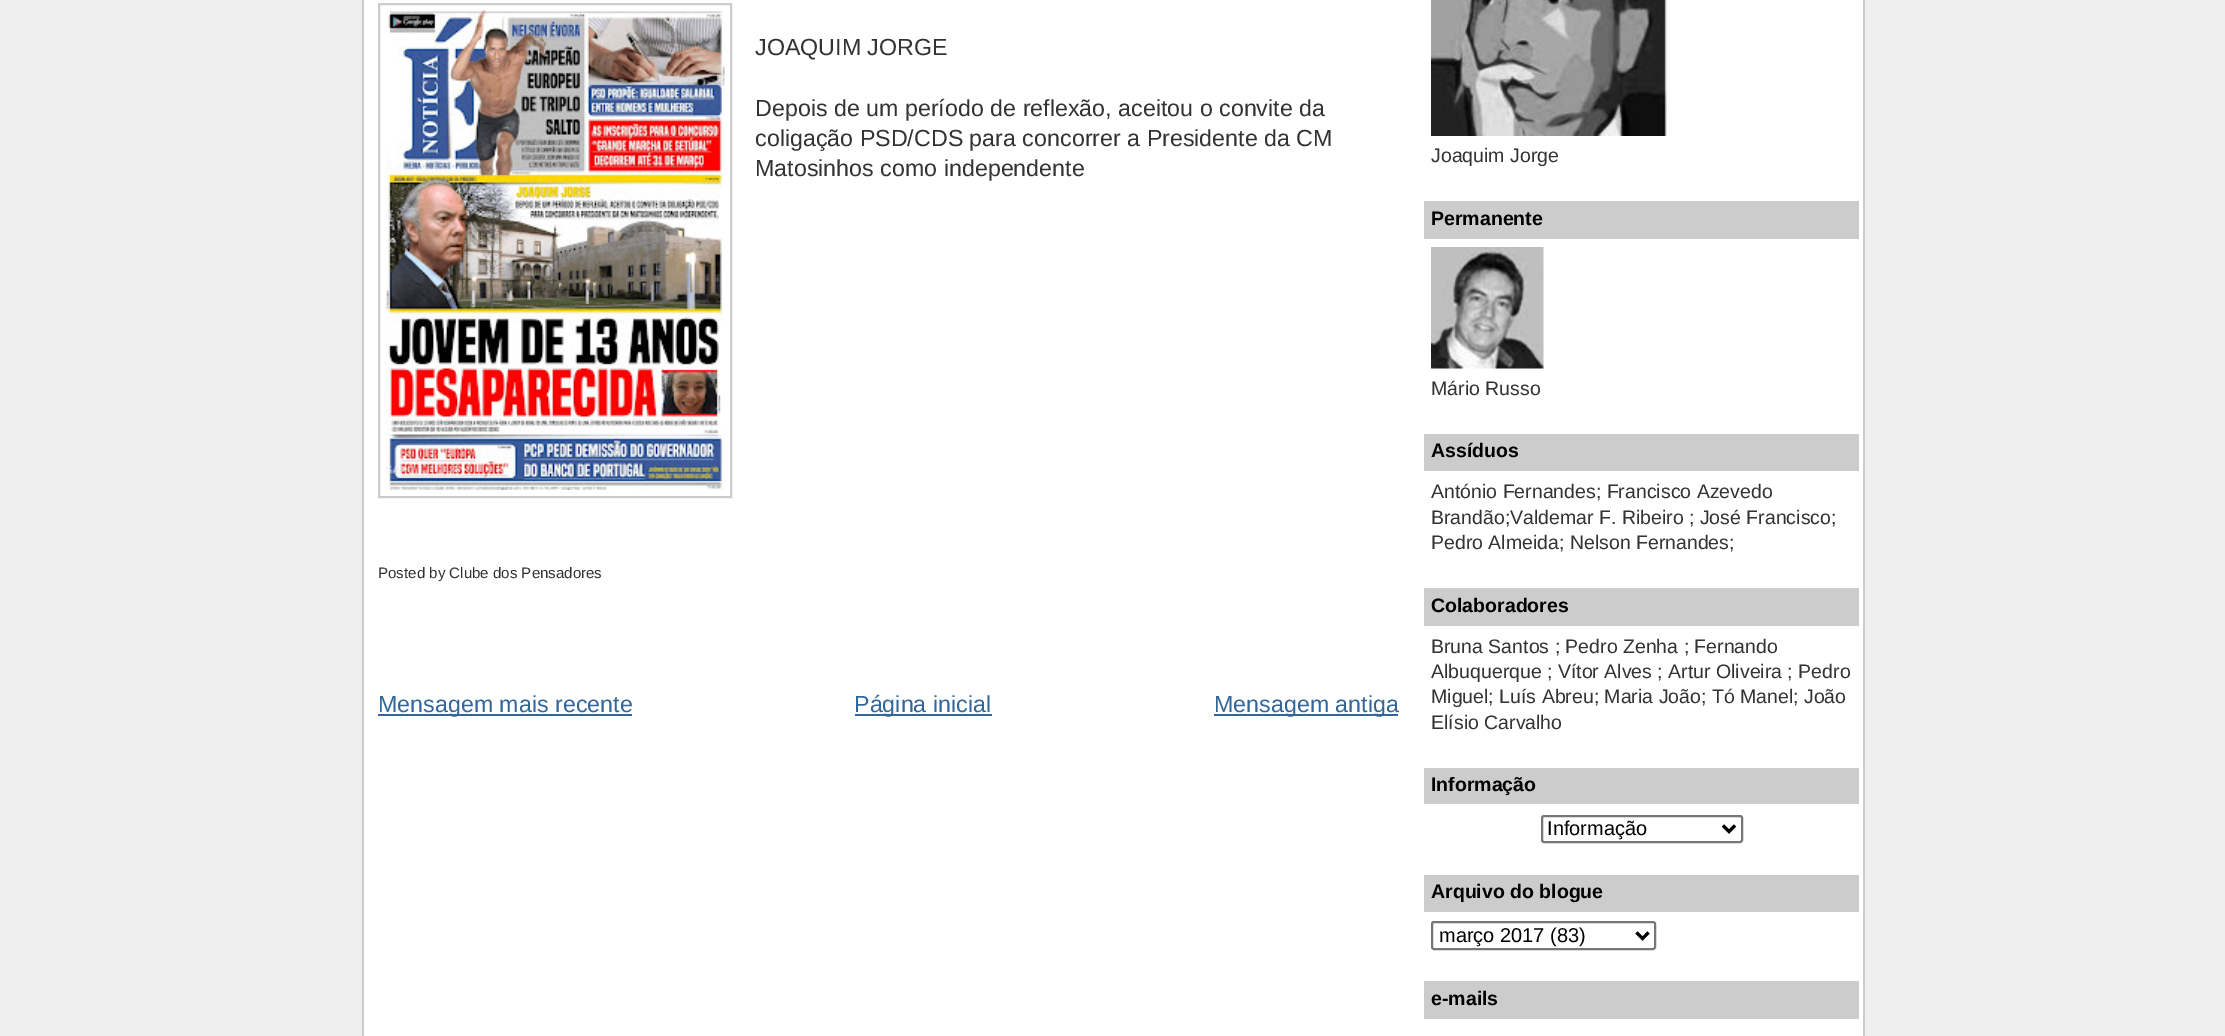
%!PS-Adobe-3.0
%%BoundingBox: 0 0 2225 1036
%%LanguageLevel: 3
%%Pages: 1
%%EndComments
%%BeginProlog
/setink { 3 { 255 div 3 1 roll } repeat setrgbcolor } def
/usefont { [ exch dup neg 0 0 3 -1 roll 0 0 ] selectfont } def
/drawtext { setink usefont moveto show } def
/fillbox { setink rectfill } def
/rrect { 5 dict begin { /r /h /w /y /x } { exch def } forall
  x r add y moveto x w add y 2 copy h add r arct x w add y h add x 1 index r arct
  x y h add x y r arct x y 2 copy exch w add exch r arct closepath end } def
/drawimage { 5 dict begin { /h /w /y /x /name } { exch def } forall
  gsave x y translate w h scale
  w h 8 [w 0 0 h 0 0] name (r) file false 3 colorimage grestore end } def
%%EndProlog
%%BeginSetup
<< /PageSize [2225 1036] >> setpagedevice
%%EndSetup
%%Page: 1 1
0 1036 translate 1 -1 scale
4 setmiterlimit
0 0 2225 1036 239 239 239 fillbox
364 0 1499 1036 255 255 255 fillbox
1863 0 2 1036 204 204 204 fillbox
362 0 2 1036 204 204 204 fillbox
2 setlinewidth
379 4 352 493 rectstroke
(assets/img1.rgb) 385 10 340 480 drawimage
(JOAQUIM JORGE) 755 55 /LiberationSans-Regular 23.25 51 51 51 drawtext
(Depois de um período de reflexão, aceitou o convite da) 755 116 /LiberationSans-Regular 23.25 51 51 51 drawtext
(coligação PSD/CDS para concorrer a Presidente da CM) 755 146 /LiberationSans-Regular 23.25 51 51 51 drawtext
(Matosinhos como independente) 755 176 /LiberationSans-Regular 23.25 51 51 51 drawtext
(Posted by Clube dos Pensadores) 378 578 /LiberationSans-Regular 15.1 51 51 51 drawtext
378 714 254 2 51 102 153 fillbox
(Mensagem mais recente) 378 712 /LiberationSans-Regular 23.25 51 102 153 drawtext
855 714 137 2 51 102 153 fillbox
(Página inicial) 854 712 /LiberationSans-Regular 23.25 51 102 153 drawtext
1214 714 184 2 51 102 153 fillbox
(Mensagem antiga) 1214 712 /LiberationSans-Regular 23.25 51 102 153 drawtext
(assets/img2.rgb) 1431 0 236 136 drawimage
(Joaquim Jorge) 1431 162 /LiberationSans-Regular 19.5 51 51 51 drawtext
1424 201 435 38 204 204 204 fillbox
(Permanente) 1431 225 /LiberationSans-Bold 19.5 0 0 0 drawtext
(assets/img3.rgb) 1431 247 113 122 drawimage
(Mário Russo) 1431 395 /LiberationSans-Regular 19.5 51 51 51 drawtext
1424 434 435 37 204 204 204 fillbox
(Assíduos) 1431 457 /LiberationSans-Bold 19.5 0 0 0 drawtext
(António Fernandes; Francisco Azevedo) 1431 498 /LiberationSans-Regular 19.5 51 51 51 drawtext
(Brandão;Valdemar F. Ribeiro ; José Francisco;) 1431 524 /LiberationSans-Regular 19.5 51 51 51 drawtext
(Pedro Almeida; Nelson Fernandes;) 1431 549 /LiberationSans-Regular 19.5 51 51 51 drawtext
1424 588 435 38 204 204 204 fillbox
(Colaboradores) 1431 612 /LiberationSans-Bold 19.5 0 0 0 drawtext
(Bruna Santos ; Pedro Zenha ; Fernando) 1431 653 /LiberationSans-Regular 19.5 51 51 51 drawtext
(Albuquerque ; Vítor Alves ; Artur Oliveira ; Pedro) 1431 678 /LiberationSans-Regular 19.5 51 51 51 drawtext
(Miguel; Luís Abreu; Maria João; Tó Manel; João) 1431 703 /LiberationSans-Regular 19.5 51 51 51 drawtext
(Elísio Carvalho) 1431 729 /LiberationSans-Regular 19.5 51 51 51 drawtext
1424 768 435 36 204 204 204 fillbox
(Informação) 1431 791 /LiberationSans-Bold 19.5 0 0 0 drawtext
118 118 118 setink
1542 816 200 26 2 rrect stroke
0 0 0 setink
3 setlinewidth
1723 825.5 moveto 1729 831.5 lineto 1735 825.5 lineto stroke
(Informação) 1547 835 /LiberationSans-Regular 20 0 0 0 drawtext
1424 875 435 37 204 204 204 fillbox
(Arquivo do blogue) 1431 898 /LiberationSans-Bold 19.5 0 0 0 drawtext
118 118 118 setink
2 setlinewidth
1432 922 223 27 2 rrect stroke
0 0 0 setink
3 setlinewidth
1636.5 932.5 moveto 1642.5 938.5 lineto 1648.5 932.5 lineto stroke
(março 2017 \(83\)) 1439 942 /LiberationSans-Regular 20 0 0 0 drawtext
1424 981 435 38 204 204 204 fillbox
(e-mails) 1431 1005 /LiberationSans-Bold 19.5 0 0 0 drawtext
showpage
%%EOF
